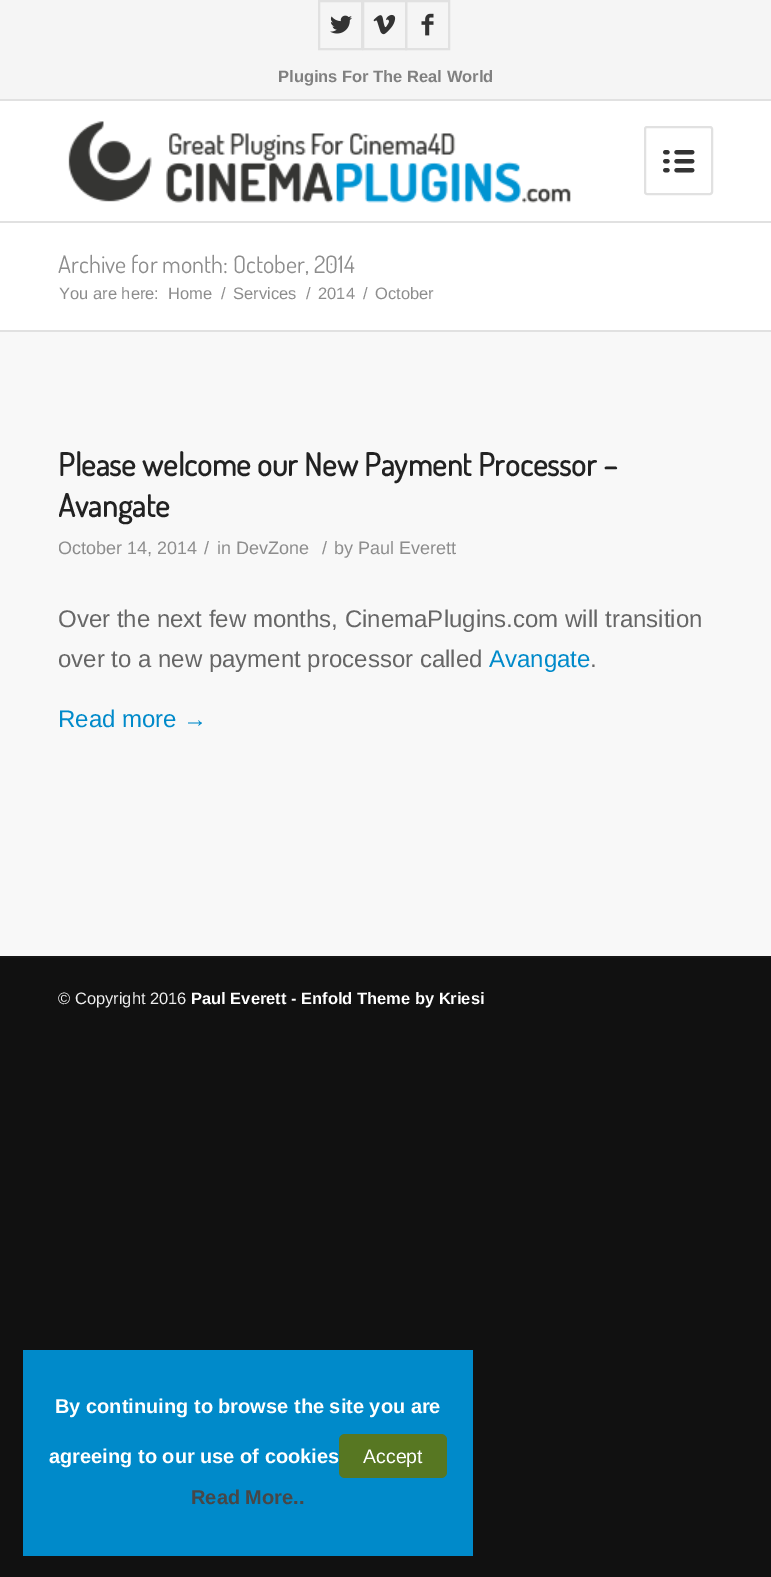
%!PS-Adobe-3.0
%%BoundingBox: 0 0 771 1577
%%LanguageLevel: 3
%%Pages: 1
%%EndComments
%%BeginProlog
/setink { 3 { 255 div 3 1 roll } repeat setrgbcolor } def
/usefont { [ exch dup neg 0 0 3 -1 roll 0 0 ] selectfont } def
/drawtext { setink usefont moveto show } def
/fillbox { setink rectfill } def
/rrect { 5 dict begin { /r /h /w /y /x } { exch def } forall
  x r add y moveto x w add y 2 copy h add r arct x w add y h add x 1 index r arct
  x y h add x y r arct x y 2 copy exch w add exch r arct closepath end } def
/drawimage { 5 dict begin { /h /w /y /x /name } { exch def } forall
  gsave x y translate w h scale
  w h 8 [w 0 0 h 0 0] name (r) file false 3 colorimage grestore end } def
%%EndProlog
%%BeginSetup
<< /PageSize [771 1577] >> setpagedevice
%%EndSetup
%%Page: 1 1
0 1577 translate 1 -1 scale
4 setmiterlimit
0 0 771 1577 17 17 17 fillbox
0 0 771 99 245 245 245 fillbox
0 99 771 2 225 225 225 fillbox
2 setlinewidth
319 1 43 48 rectstroke
(assets/img1.rgb) 330 15 22 19 drawimage
363 1 43 48 rectstroke
(assets/img2.rgb) 373 14 23 21 drawimage
406 1 43 48 rectstroke
(assets/img3.rgb) 421 13 13 23 drawimage
(Plugins For The Real World) 278 82 /LiberationSans-Bold 16.5 128 128 128 drawtext
0 101 771 120 255 255 255 fillbox
0 221 771 2 225 225 225 fillbox
(assets/img4.rgb) 68 121 503 82 drawimage
645 127 67 67 2 rrect stroke
(assets/img5.rgb) 663 150 32 23 drawimage
0 223 771 107 255 255 255 fillbox
(Archive for month: October, 2014) 58 273 /Dosis-Regular 24 141 141 141 drawtext
(You are here:) 59 299 /LiberationSans-Regular 16.5 141 141 141 drawtext
(Home) 168 299 /LiberationSans-Regular 16.5 141 141 141 drawtext
(/) 221 299 /LiberationSans-Regular 16.5 141 141 141 drawtext
(Services) 233 299 /LiberationSans-Regular 16.5 141 141 141 drawtext
(/) 306 299 /LiberationSans-Regular 16.5 141 141 141 drawtext
(2014) 318 299 /LiberationSans-Regular 16.5 141 141 141 drawtext
(/) 363 299 /LiberationSans-Regular 16.5 141 141 141 drawtext
(October) 375 299 /LiberationSans-Regular 16.5 141 141 141 drawtext
0 332 771 624 248 248 248 fillbox
0 330 771 2 225 225 225 fillbox
(Please welcome our New Payment Processor –) 58 476 /Dosis-Bold 31.5 34 34 34 drawtext
gsave
59 444 654 407 rectclip
(Avangate) 58 517 /Dosis-Bold 31.5 34 34 34 drawtext
(October 14, 2014) 58 554 /LiberationSans-Regular 18 141 141 141 drawtext
grestore
(/) 204 554 /LiberationSans-Regular 18 141 141 141 drawtext
(in DevZone) 217 554 /LiberationSans-Regular 18 141 141 141 drawtext
(/) 322 554 /LiberationSans-Regular 18 141 141 141 drawtext
(by Paul Everett) 334 554 /LiberationSans-Regular 18 141 141 141 drawtext
(Over the next few months, CinemaPlugins.com will transition) 58 627 /LiberationSans-Regular 24 102 102 102 drawtext
gsave
59 444 654 407 rectclip
(over to a new payment processor called) 58 667 /LiberationSans-Regular 24 102 102 102 drawtext
grestore
(Avangate) 489 667 /LiberationSans-Regular 24 0 138 202 drawtext
(.) 590 667 /LiberationSans-Regular 24 102 102 102 drawtext
(Read more →) 58 727 /LiberationSans-Regular 24 0 138 202 drawtext
0 956 771 2 22 22 22 fillbox
(© Copyright 2016) 58 1004 /LiberationSans-Regular 16.5 238 238 238 drawtext
(Paul Everett - Enfold Theme by Kriesi) 191 1004 /LiberationSans-Bold 16.5 255 255 255 drawtext
23 1350 450 206 0 138 202 fillbox
(By continuing to browse the site you are) 55 1413 /LiberationSans-Bold 20 255 255 255 drawtext
(agreeing to our use of cookies) 49 1463 /LiberationSans-Bold 20 255 255 255 drawtext
87 119 34 setink
339 1434 108 44 6 rrect fill
(Accept) 363 1463 /LiberationSans-Regular 19.5 255 255 255 drawtext
(Read More..) 191 1504 /LiberationSans-Bold 20 71 71 71 drawtext
showpage
%%EOF
